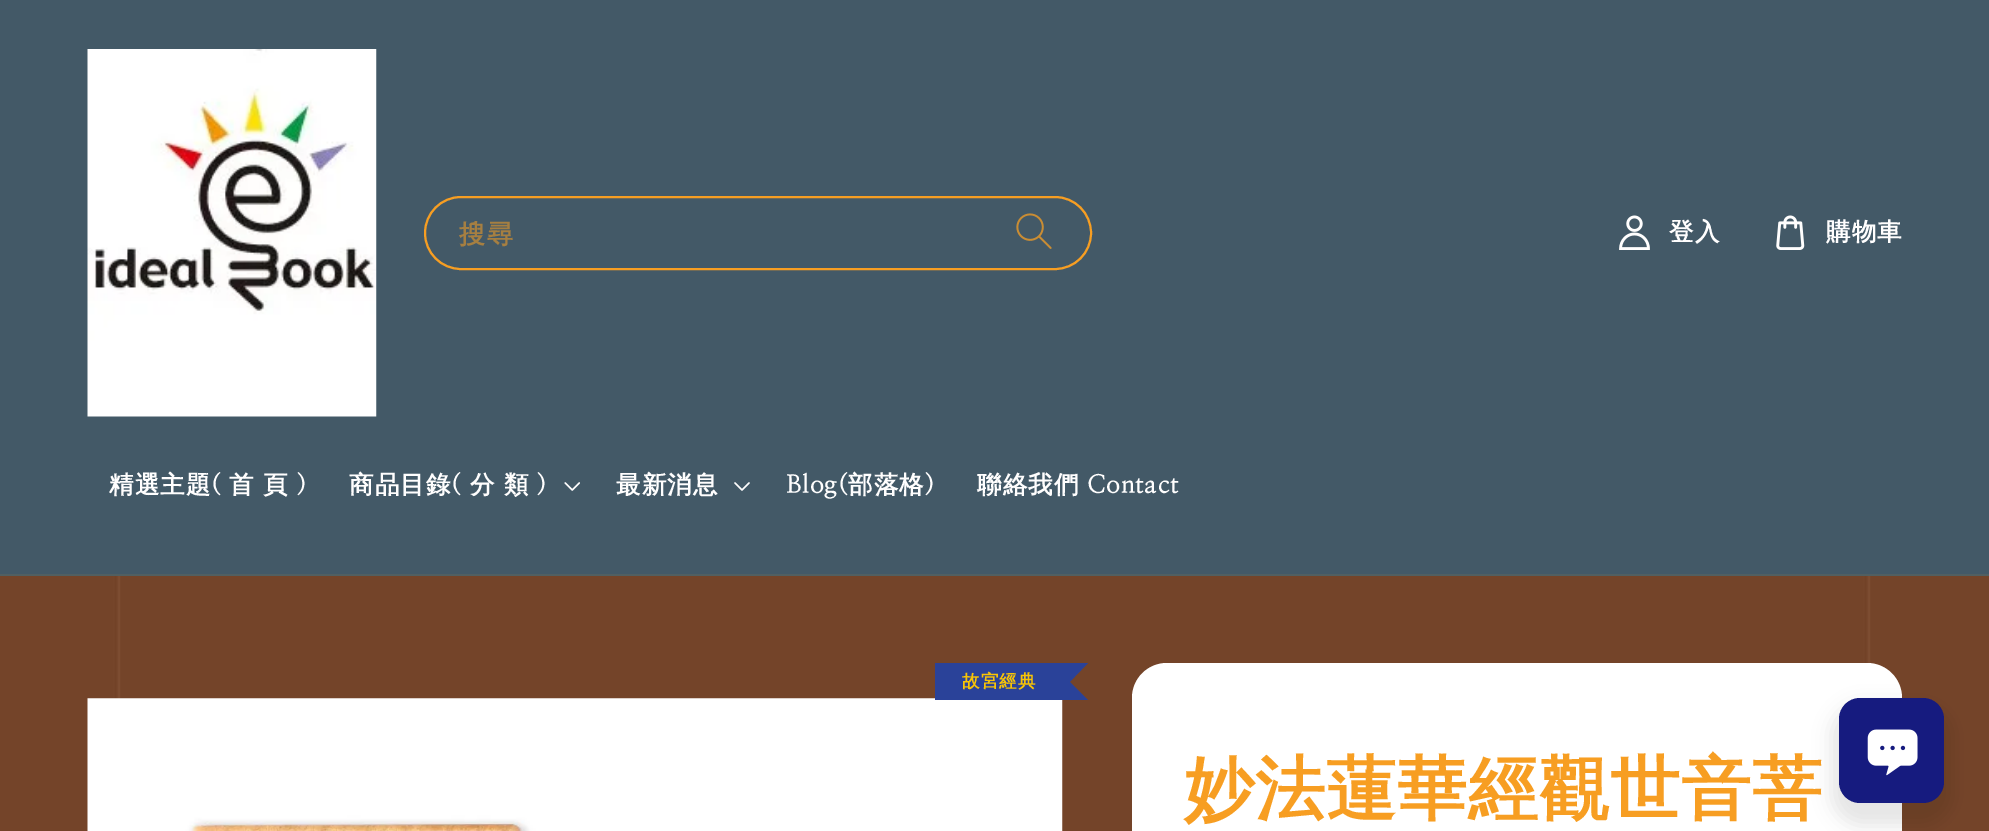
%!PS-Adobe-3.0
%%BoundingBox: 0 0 1989 831
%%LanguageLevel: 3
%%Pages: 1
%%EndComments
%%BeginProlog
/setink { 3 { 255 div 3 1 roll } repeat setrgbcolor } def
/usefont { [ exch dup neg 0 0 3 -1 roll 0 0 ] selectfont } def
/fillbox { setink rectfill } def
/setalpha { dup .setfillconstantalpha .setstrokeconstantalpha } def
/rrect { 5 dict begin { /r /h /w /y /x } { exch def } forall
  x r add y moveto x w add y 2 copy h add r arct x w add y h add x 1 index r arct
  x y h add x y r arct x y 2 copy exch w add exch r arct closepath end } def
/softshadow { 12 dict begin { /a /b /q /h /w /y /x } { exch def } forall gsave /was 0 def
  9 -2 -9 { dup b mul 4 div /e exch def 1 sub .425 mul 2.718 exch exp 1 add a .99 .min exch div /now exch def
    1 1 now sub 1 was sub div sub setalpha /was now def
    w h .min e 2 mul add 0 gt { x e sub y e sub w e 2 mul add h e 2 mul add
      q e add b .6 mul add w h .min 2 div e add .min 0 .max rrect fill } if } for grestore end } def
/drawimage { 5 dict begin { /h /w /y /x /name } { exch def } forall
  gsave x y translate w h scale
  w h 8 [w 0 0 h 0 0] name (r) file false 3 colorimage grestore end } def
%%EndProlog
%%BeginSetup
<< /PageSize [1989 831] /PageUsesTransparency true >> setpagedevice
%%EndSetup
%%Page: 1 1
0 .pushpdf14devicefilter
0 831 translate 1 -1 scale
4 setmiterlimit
0 0 1989 831 255 255 255 fillbox
(assets/img1.rgb) 0 576 1989 255 drawimage
0 0 1989 574 67 89 103 fillbox
0 574 1989 2 81 95 97 fillbox
(assets/img2.rgb) 87 49 290 368 drawimage
247 158 34 setink
2 setlinewidth
425 197 666 72 36 rrect stroke
/WenQuanYiZenHei-Bold 26 usefont
166 127 65 setink
459 243 moveto 2 0 (搜尋) ashow
(assets/img3.rgb) 1016 213 36 36 drawimage
(assets/img4.rgb) 1619 215 31 35 drawimage
/WenQuanYiZenHei-Bold 24.5 usefont
255 254 254 setink
1669 240 moveto 1 0 (登入) ashow
(assets/img5.rgb) 1776 215 29 35 drawimage
1826 240 moveto 1 0 (購物車) ashow
109 493 moveto 1 0 (精選主題) ashow
/NanumMyeongjo-Bold 24.5 usefont
211 493 moveto 1 0 (\() ashow
/WenQuanYiZenHei-Bold 24.5 usefont
229 493 moveto 1 0 (首 頁) ashow
/NanumMyeongjo-Bold 24.5 usefont
297 493 moveto 1 0 (\)) ashow
/WenQuanYiZenHei-Bold 24.5 usefont
349 493 moveto 1 0 (商品目錄) ashow
/NanumMyeongjo-Bold 24.5 usefont
451 493 moveto 1 0 (\() ashow
/WenQuanYiZenHei-Bold 24.5 usefont
470 493 moveto 1 0 (分 類) ashow
/NanumMyeongjo-Bold 24.5 usefont
537 493 moveto 1 0 (\)) ashow
(assets/img6.rgb) 564 482 16 9 drawimage
/WenQuanYiZenHei-Bold 24.5 usefont
616 493 moveto 1 0 (最新消息) ashow
(assets/img7.rgb) 734 482 16 9 drawimage
/NanumMyeongjo-Bold 24.5 usefont
786 493 moveto 1 0 (Blog\() ashow
/WenQuanYiZenHei-Bold 24.5 usefont
848 493 moveto 1 0 (部落格) ashow
/NanumMyeongjo-Bold 24.5 usefont
925 493 moveto 1 0 (\)) ashow
/WenQuanYiZenHei-Bold 24.5 usefont
977 493 moveto 1 0 (聯絡我們) ashow
/NanumMyeongjo-Bold 24.5 usefont
1087 493 moveto 1 0 (Contact) ashow
(assets/img8.rgb) 87 698 976 133 drawimage
935 663 120 37 42 66 153 fillbox
/WenQuanYiZenHei-Bold 17.5 usefont
248 196 5 setink
962 687 moveto 1 0 (故宮經典) ashow
42 66 153 setink
1036 663 moveto 1088 663 lineto 1062 690 lineto closepath fill
1088 700 moveto 1036 700 lineto 1062 674 lineto closepath fill
255 255 255 setink
1132 663 770 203 35 rrect fill
/WenQuanYiZenHei-Bold 70 usefont
247 158 34 setink
1184 813 moveto 1 0 (妙法蓮華經觀世音菩) ashow
0 0 0 setink
1831 704 122 122 30 9 0.1 softshadow
22 27 127 setink
1839 698 105 105 21 rrect fill
(assets/img9.rgb) 1867 729 51 47 drawimage
.poppdf14devicefilter showpage
%%EOF
